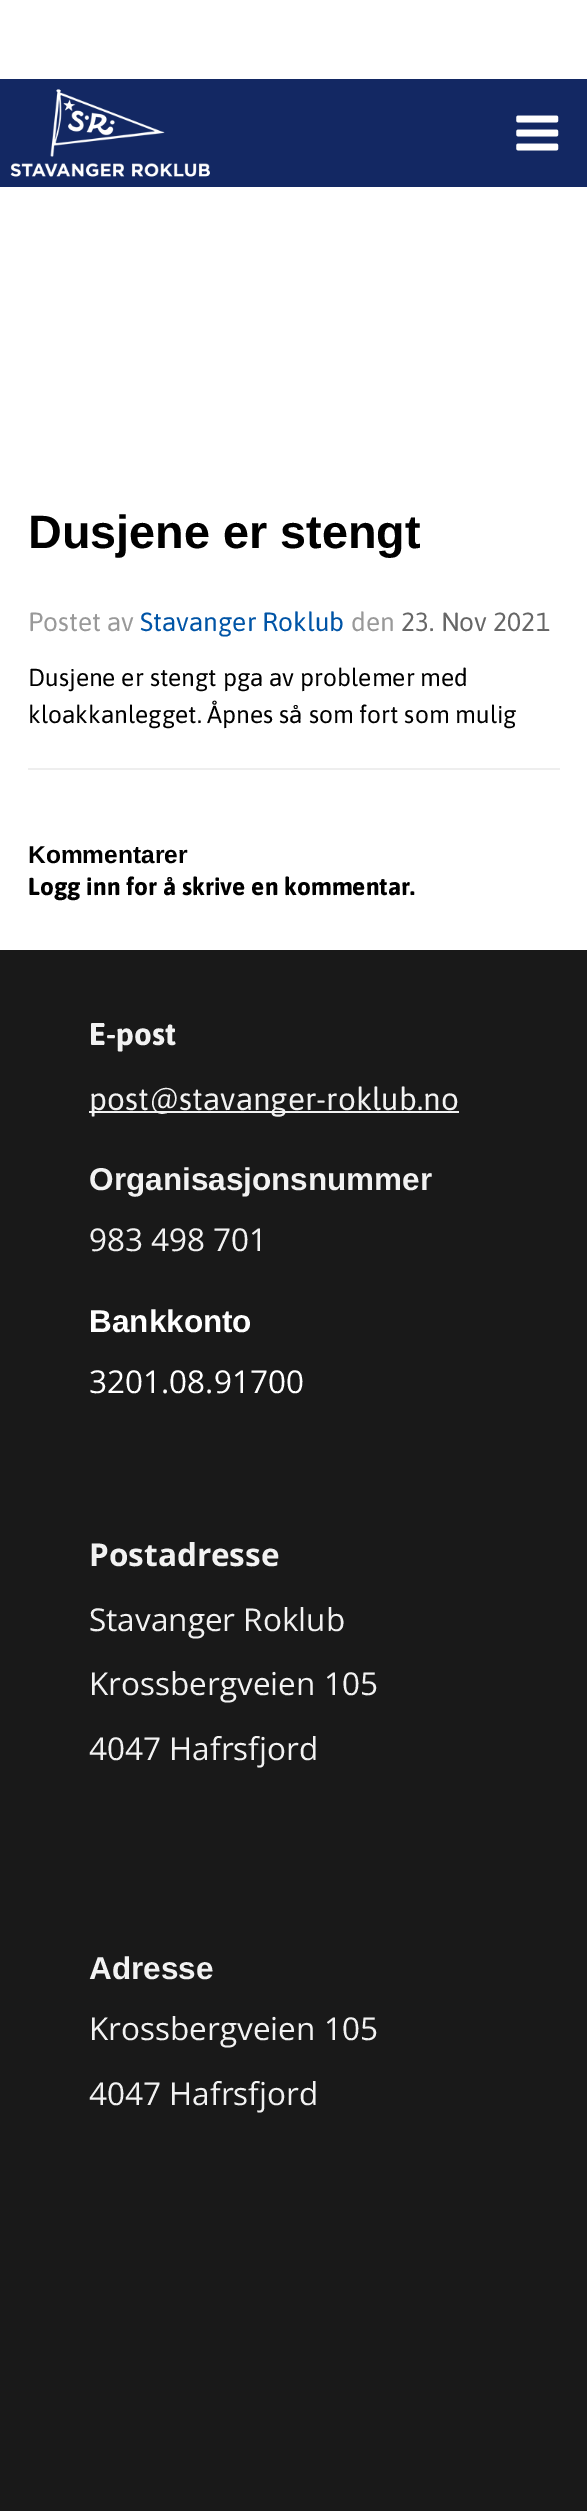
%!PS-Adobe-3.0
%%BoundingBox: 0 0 587 2511
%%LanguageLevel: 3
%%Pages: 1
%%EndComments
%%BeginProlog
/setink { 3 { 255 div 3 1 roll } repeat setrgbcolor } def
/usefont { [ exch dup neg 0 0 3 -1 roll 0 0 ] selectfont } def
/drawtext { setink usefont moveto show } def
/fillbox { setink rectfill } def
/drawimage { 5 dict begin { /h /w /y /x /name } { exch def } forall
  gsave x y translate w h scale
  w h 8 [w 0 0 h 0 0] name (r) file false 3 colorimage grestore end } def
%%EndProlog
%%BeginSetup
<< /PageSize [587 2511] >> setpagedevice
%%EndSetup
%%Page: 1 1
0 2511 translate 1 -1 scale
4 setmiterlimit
0 0 587 2511 255 255 255 fillbox
0 79 587 108 19 40 99 fillbox
(assets/img1.rgb) 10 89 200 88 drawimage
(assets/img2.rgb) 516 115 43 36 drawimage
(Dusjene er stengt) 28 548 /LiberationSans-Bold 46.75 0 0 0 drawtext
(Postet av) 28 631 /Asap-Regular 26.25 153 153 153 drawtext
(Stavanger Roklub) 140 631 /Asap-Regular 26.25 0 84 166 drawtext
(den) 351 631 /Asap-Regular 26.25 153 153 153 drawtext
(23. Nov 2021) 401 631 /Asap-Regular 26.25 102 102 102 drawtext
(Dusjene er stengt pga av problemer med) 28 686 /Asap-Regular 24.5 0 0 0 drawtext
(kloakkanlegget. Åpnes så som fort som mulig) 28 723 /Asap-Regular 24.5 0 0 0 drawtext
28 768 532 2 238 238 238 fillbox
(Kommentarer) 28 863 /LiberationSans-Bold 24.5 0 0 0 drawtext
(Logg inn for å skrive en kommentar.) 28 895 /Asap-Bold 24.5 0 0 0 drawtext
0 950 587 1561 25 25 25 fillbox
(E-post) 89 1045 /Asap-Bold 31.5 242 242 242 drawtext
89 1111 370 2 242 242 242 fillbox
(post@stavanger-roklub.no) 89 1110 /Asap-Regular 31.5 242 242 242 drawtext
(Organisasjonsnummer) 89 1190 /LiberationSans-Bold 31.5 242 242 242 drawtext
(983 498 701) 89 1251 /OpenSans-Regular 31.5 242 242 242 drawtext
(Bankkonto) 89 1332 /LiberationSans-Bold 31.5 255 255 255 drawtext
(3201.08.91700) 89 1393 /OpenSans-Regular 31.5 255 255 255 drawtext
(Postadresse) 89 1566 /OpenSans-Bold 31.5 242 242 242 drawtext
(Stavanger Roklub) 89 1631 /OpenSans-Regular 31.5 242 242 242 drawtext
(Krossbergveien 105) 89 1695 /OpenSans-Regular 31.5 242 242 242 drawtext
(4047 Hafrsfjord) 89 1760 /OpenSans-Regular 31.5 242 242 242 drawtext
(Adresse) 89 1979 /LiberationSans-Bold 31.5 242 242 242 drawtext
(Krossbergveien 105) 89 2040 /OpenSans-Regular 31.5 242 242 242 drawtext
(4047 Hafrsfjord) 89 2105 /OpenSans-Regular 31.5 242 242 242 drawtext
showpage
%%EOF
